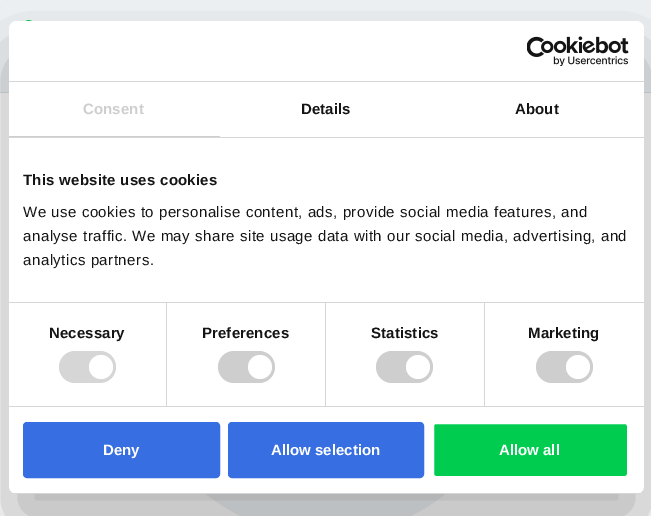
%!PS-Adobe-3.0
%%BoundingBox: 0 0 651 516
%%LanguageLevel: 3
%%Pages: 1
%%EndComments
%%BeginProlog
/setink { 3 { 255 div 3 1 roll } repeat setrgbcolor } def
/usefont { [ exch dup neg 0 0 3 -1 roll 0 0 ] selectfont } def
/drawtext { setink usefont moveto show } def
/fillbox { setink rectfill } def
/setalpha { dup .setfillconstantalpha .setstrokeconstantalpha } def
/disc { newpath 0 360 arc closepath } def
/rrect { 5 dict begin { /r /h /w /y /x } { exch def } forall
  x r add y moveto x w add y 2 copy h add r arct x w add y h add x 1 index r arct
  x y h add x y r arct x y 2 copy exch w add exch r arct closepath end } def
/softshadow { 12 dict begin { /a /b /q /h /w /y /x } { exch def } forall gsave /was 0 def
  9 -2 -9 { dup b mul 4 div /e exch def 1 sub .425 mul 2.718 exch exp 1 add a .99 .min exch div /now exch def
    1 1 now sub 1 was sub div sub setalpha /was now def
    w h .min e 2 mul add 0 gt { x e sub y e sub w e 2 mul add h e 2 mul add
      q e add b .6 mul add w h .min 2 div e add .min 0 .max rrect fill } if } for grestore end } def
/drawimage { 5 dict begin { /h /w /y /x /name } { exch def } forall
  gsave x y translate w h scale
  w h 8 [w 0 0 h 0 0] name (r) file false 3 colorimage grestore end } def
%%EndProlog
%%BeginSetup
<< /PageSize [651 516] /PageUsesTransparency true >> setpagedevice
%%EndSetup
%%Page: 1 1
0 .pushpdf14devicefilter
0 516 translate 1 -1 scale
4 setmiterlimit
0 0 651 516 255 255 255 fillbox
0 0 651 92 241 244 246 fillbox
(assets/img1.rgb) 25 20 7 1 drawimage
0 92 651 1 217 227 231 fillbox
(assets/img3.rgb) 205 494 241 22 drawimage
0 0 0 setink
9 53 635 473 8 34 0.3 softshadow
255 255 255 setink
9 21 635 473 8 rrect fill
9 81 635 1 214 214 214 fillbox
(assets/img2.rgb) 527 36 102 30 drawimage
9 137 635 1 214 214 214 fillbox
9 136 211 1 206 206 206 fillbox
/LiberationSans-Bold 15 usefont
83 114 moveto 0.1 0 (Consent) ashow
20 20 20 setink
301 114 moveto 0.1 0 (Details) ashow
515 114 moveto 0.1 0 (About) ashow
9 302 635 1 214 214 214 fillbox
20 20 20 setink
23 185 moveto 0.25 0 (This website uses cookies) ashow
/LiberationSans-Regular 15 usefont
23 217 moveto 0.5 0 (We use cookies to personalise content, ads, provide social media features, and) ashow
23 241 moveto 0.5 0 (analyse traffic. We may share site usage data with our social media, advertising, and) ashow
23 265 moveto 0.5 0 (analytics partners.) ashow
9 406 635 1 214 214 214 fillbox
166 303 1 103 214 214 214 fillbox
/LiberationSans-Bold 15 usefont
20 20 20 setink
49 338 moveto 0.1 0 (Necessary) ashow
214 214 214 setink
59 351 57 32 16 rrect fill
255 255 255 setink
101 367 12 disc fill
325 303 1 103 214 214 214 fillbox
20 20 20 setink
202 338 moveto 0.1 0 (Preferences) ashow
206 206 206 setink
218 351 57 32 16 rrect fill
255 255 255 setink
260 367 12 disc fill
484 303 1 103 214 214 214 fillbox
20 20 20 setink
371 338 moveto 0.1 0 (Statistics) ashow
206 206 206 setink
376 351 57 32 16 rrect fill
255 255 255 setink
418 367 12 disc fill
20 20 20 setink
528 338 moveto 0.1 0 (Marketing) ashow
206 206 206 setink
536 351 57 32 16 rrect fill
255 255 255 setink
578 367 12 disc fill
gsave
9 21 635 473 8 rrect clip newpath
9 493 635 1 214 214 214 fillbox
grestore
55 110 225 setink
24 423 195 54 3 rrect gsave fill grestore
2 setlinewidth
stroke
(Deny) 103 455 /LiberationSans-Bold 15 255 255 255 drawtext
55 110 225 setink
229 423 194 54 3 rrect gsave fill grestore
stroke
(Allow selection) 271 455 /LiberationSans-Bold 15 255 255 255 drawtext
0 205 80 setink
433 423 195 54 3 rrect gsave fill grestore
255 255 255 setink
stroke
(Allow all) 499 455 /LiberationSans-Bold 15 255 255 255 drawtext
.poppdf14devicefilter showpage
%%EOF
